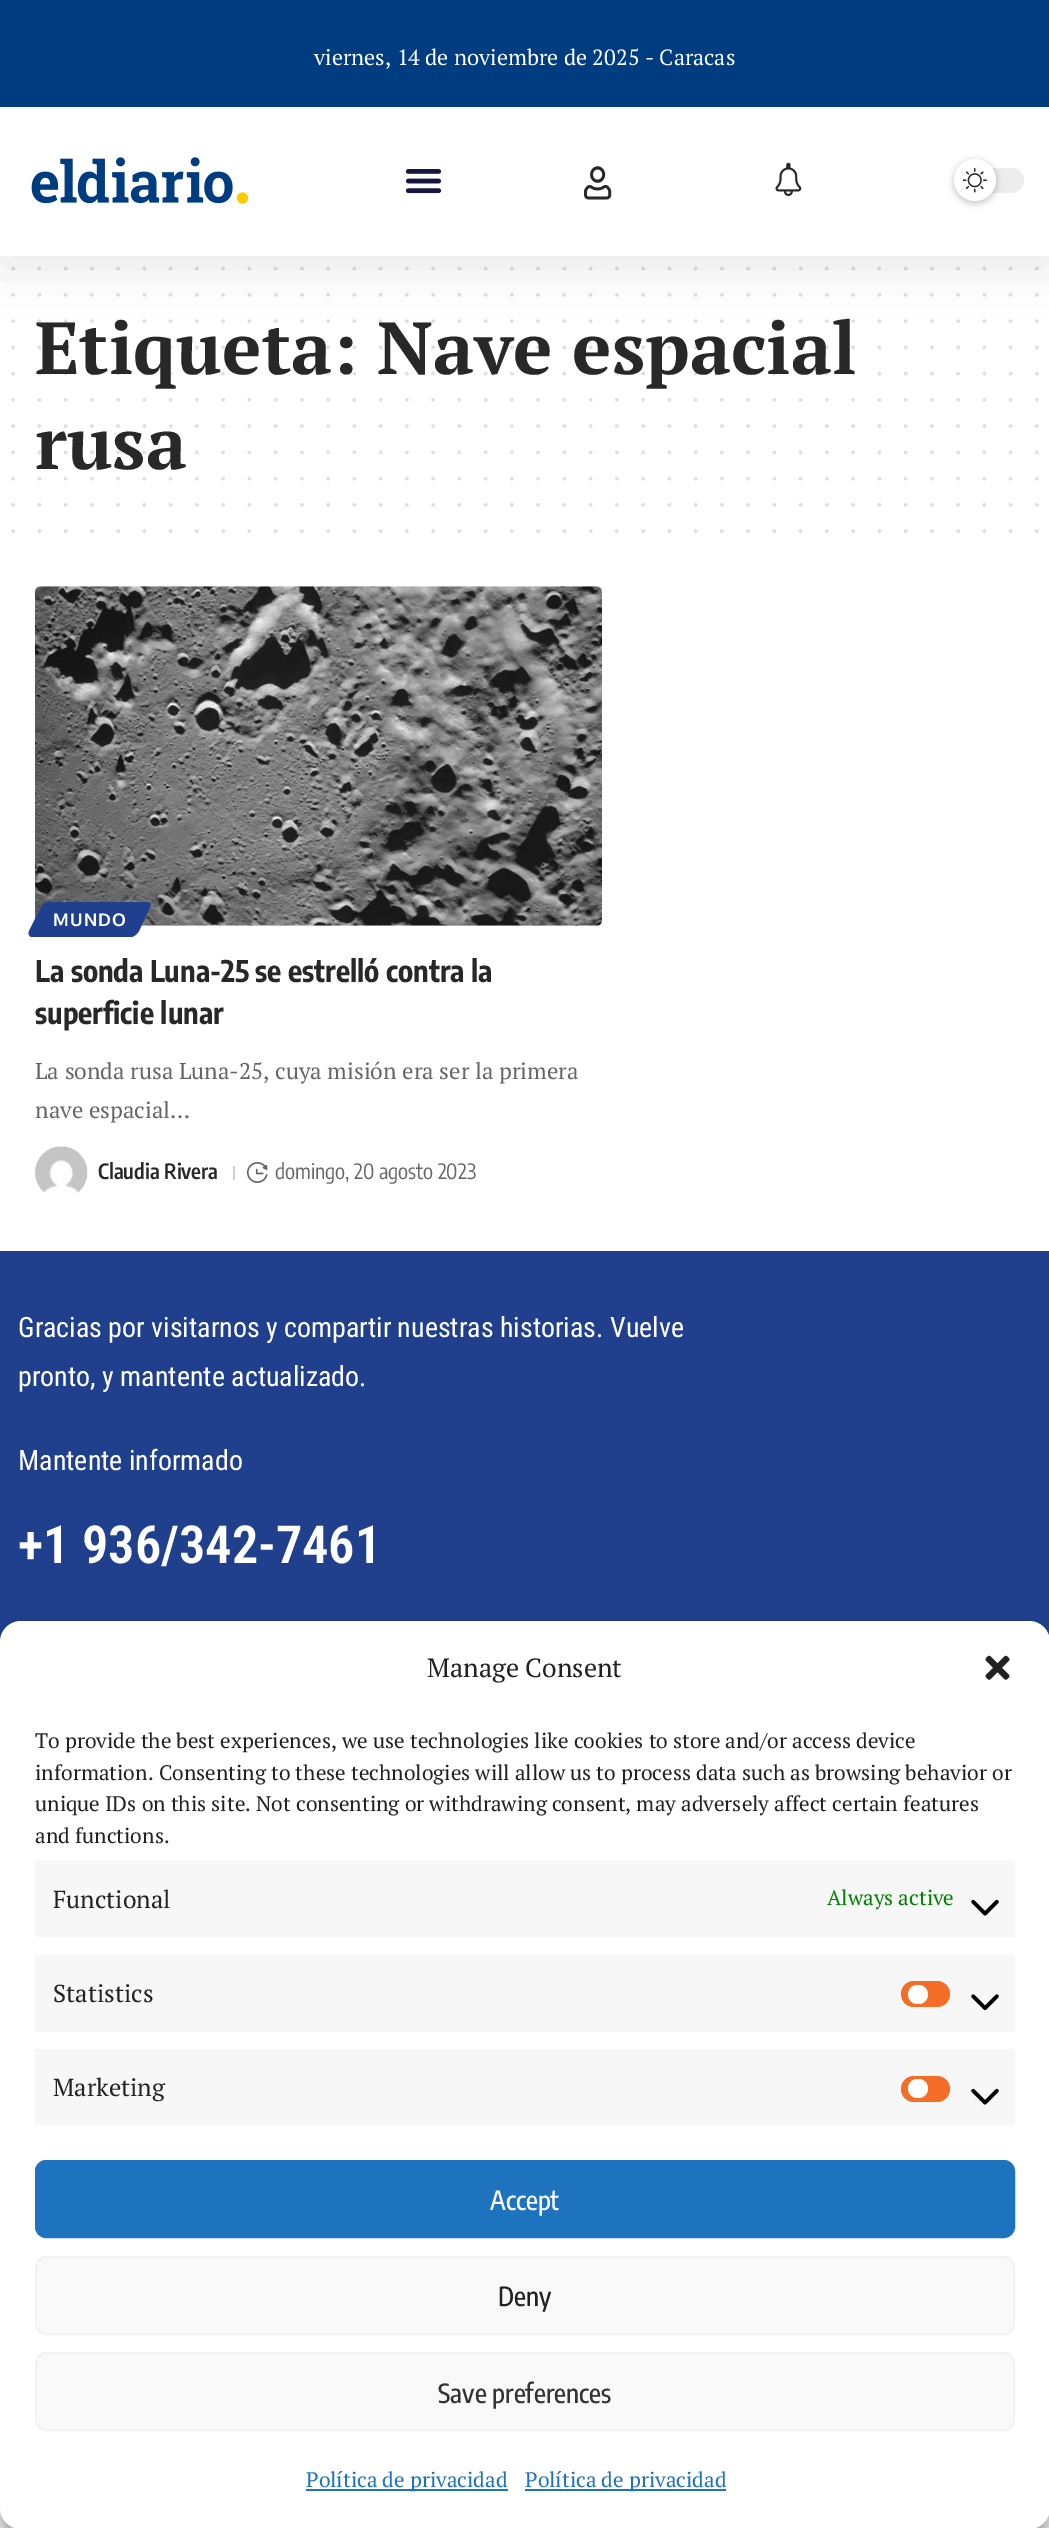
%!PS-Adobe-3.0
%%BoundingBox: 0 0 1049 2528
%%LanguageLevel: 3
%%Pages: 1
%%EndComments
%%BeginProlog
/setink { 3 { 255 div 3 1 roll } repeat setrgbcolor } def
/usefont { [ exch dup neg 0 0 3 -1 roll 0 0 ] selectfont } def
/drawtext { setink usefont moveto show } def
/fillbox { setink rectfill } def
/setalpha { dup .setfillconstantalpha .setstrokeconstantalpha } def
/disc { newpath 0 360 arc closepath } def
/rrect { 5 dict begin { /r /h /w /y /x } { exch def } forall
  x r add y moveto x w add y 2 copy h add r arct x w add y h add x 1 index r arct
  x y h add x y r arct x y 2 copy exch w add exch r arct closepath end } def
/softshadow { 12 dict begin { /a /b /q /h /w /y /x } { exch def } forall gsave /was 0 def
  9 -2 -9 { dup b mul 4 div /e exch def 1 sub .425 mul 2.718 exch exp 1 add a .99 .min exch div /now exch def
    1 1 now sub 1 was sub div sub setalpha /was now def
    w h .min e 2 mul add 0 gt { x e sub y e sub w e 2 mul add h e 2 mul add
      q e add b .6 mul add w h .min 2 div e add .min 0 .max rrect fill } if } for grestore end } def
/drawimage { 5 dict begin { /h /w /y /x /name } { exch def } forall
  gsave x y translate w h scale
  w h 8 [w 0 0 h 0 0] name (r) file false 3 colorimage grestore end } def
%%EndProlog
%%BeginSetup
<< /PageSize [1049 2528] /PageUsesTransparency true >> setpagedevice
%%EndSetup
%%Page: 1 1
0 .pushpdf14devicefilter
0 2528 translate 1 -1 scale
4 setmiterlimit
0 0 1049 2528 255 255 255 fillbox
223 223 223 setink
3.5 setlinewidth
1 setlinecap
[0 26.25] 0 setdash
13.1 268.6 moveto 1037.2 268.6 lineto stroke
13.1 294.9 moveto 1037.2 294.9 lineto stroke
(Etiqueta: Nave espacial) 35 374 /PTSerif-Bold 73.5 40 40 40 drawtext
0.15 setalpha
13.1 321.1 moveto 1037.2 321.1 lineto stroke
1 setalpha
0 0 0 setink
0 9 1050 255 0 26 0.1 softshadow
0 0 1049 107 0 61 128 fillbox
(viernes, 14 de noviembre de 2025 - Caracas) 314 65 /PTSerif-Regular 22 255 255 255 drawtext
0 107 1049 149 255 255 255 fillbox
(assets/img1.rgb) 31 157 218 47 drawimage
(assets/img2.rgb) 405 169 37 25 drawimage
(assets/img3.rgb) 584 166 28 34 drawimage
(assets/img4.rgb) 775 162 27 34 drawimage
237 237 237 setink
954 168 70 25 12.5 rrect fill
0 0 0 setink
954 161 42 42 21 3.5 0.12 softshadow
954 161 42 42 21 3.5 0.12 softshadow
255 255 255 setink
975 180 21 disc fill
(assets/img5.rgb) 963 168 24 25 drawimage
0.15 setalpha
40 40 40 setink
13.1 347.4 moveto 1037.2 347.4 lineto stroke
13.1 373.6 moveto 1037.2 373.6 lineto stroke
1 setalpha
223 223 223 setink
13.1 399.9 moveto 1037.2 399.9 lineto stroke
13.1 426.1 moveto 1037.2 426.1 lineto stroke
(rusa) 35 469 /PTSerif-Bold 73.5 40 40 40 drawtext
0.15 setalpha
13.1 452.4 moveto 1037.2 452.4 lineto stroke
1 setalpha
223 223 223 setink
13.1 478.6 moveto 1037.2 478.6 lineto stroke
13.1 504.9 moveto 1037.2 504.9 lineto stroke
13.1 531.1 moveto 1037.2 531.1 lineto stroke
(assets/img6.rgb) 35 586 567 340 drawimage
32 64 142 setink
48 902 moveto 147 902 lineto 150 902 152 904 150 907 curveto 139 931 lineto 137 934 134 937 131 937 curveto 32 937 lineto 29 937 28 934 29 931 curveto 41 907 lineto 42 904 46 902 48 902 curveto closepath fill
/Oxygen-Bold 17.5 usefont
255 255 255 setink
53 926 moveto 1.25 0 (MUNDO) ashow
(La sonda Luna-25 se estrelló contra la) 35 982 /EncodeSansCondensed-Bold 29.75 40 40 40 drawtext
(superficie lunar) 35 1024 /EncodeSansCondensed-Bold 29.75 40 40 40 drawtext
(La sonda rusa Luna-25, cuya misión era ser la primera) 35 1079 /PTSerif-Regular 22.75 102 102 102 drawtext
(nave espacial…) 35 1118 /PTSerif-Regular 22.75 102 102 102 drawtext
(assets/img7.rgb) 35 1146 53 47 drawimage
(Claudia Rivera) 98 1179 /EncodeSansCondensed-SemiBold 21 40 40 40 drawtext
233 1166 2 14 209 209 209 fillbox
(assets/img8.rgb) 246 1162 22 21 drawimage
(domingo, 20 agosto 2023) 275 1179 /EncodeSansCondensed-Regular 21 102 102 102 drawtext
0 1251 1049 391 32 64 142 fillbox
(Gracias por visitarnos y compartir nuestras historias. Vuelve) 18 1337 /RobotoCondensed-Regular 28 255 255 255 drawtext
(pronto, y mantente actualizado.) 18 1386 /RobotoCondensed-Regular 28 255 255 255 drawtext
(Mantente informado) 18 1470 /RobotoCondensed-Regular 28 255 255 255 drawtext
(+1 936/342-7461) 18 1563 /RobotoCondensed-SemiBold 52.5 255 255 255 drawtext
0 0 0 setink
0 1631 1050 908 21 5 0.23 softshadow
0 1638 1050 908 21 17.5 0.19 softshadow
255 255 255 setink
0 1621 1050 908 21 rrect fill
(Manage Consent) 427 1677 /PTSerif-Regular 26.25 34 34 34 drawtext
(assets/img9.rgb) 985 1655 25 25 drawimage
(To provide the best experiences, we use technologies like cookies to store and/or access device) 35 1748 /PTSerif-Regular 21 34 34 34 drawtext
(information. Consenting to these technologies will allow us to process data such as browsing behavior or) 35 1780 /PTSerif-Regular 21 34 34 34 drawtext
(unique IDs on this site. Not consenting or withdrawing consent, may adversely affect certain features) 35 1811 /PTSerif-Regular 21 34 34 34 drawtext
(and functions.) 35 1843 /PTSerif-Regular 21 34 34 34 drawtext
35 1860 980 77 247 247 247 fillbox
(Functional) 53 1908 /PTSerif-Regular 24.5 34 34 34 drawtext
(Always active) 827 1905 /PTSerif-Regular 21 0 128 0 drawtext
(assets/img10.rgb) 971 1899 28 17 drawimage
35 1955 980 77 247 247 247 fillbox
(Statistics) 53 2002 /PTSerif-Regular 24.5 34 34 34 drawtext
245 110 40 setink
901 1981 49 26 13 rrect fill
255 255 255 setink
908 1985 20 19 9.5 rrect fill
(assets/img11.rgb) 971 1994 28 17 drawimage
35 2049 980 76 247 247 247 fillbox
(Marketing) 53 2096 /PTSerif-Regular 24.5 34 34 34 drawtext
245 110 40 setink
901 2076 49 26 13 rrect fill
255 255 255 setink
908 2079 20 19 9.5 rrect fill
(assets/img10.rgb) 971 2088 28 17 drawimage
30 115 190 setink
36 2161 978 76 10 rrect gsave fill grestore
2 setlinewidth
0 setlinecap
[] 0 setdash
stroke
(Accept) 490 2210 /EncodeSansCondensed-Medium 26.25 255 255 255 drawtext
249 249 249 setink
36 2257 978 77 10 rrect gsave fill grestore
242 242 242 setink
stroke
(Deny) 498 2306 /EncodeSansCondensed-Medium 26.25 34 34 34 drawtext
249 249 249 setink
36 2353 978 77 10 rrect gsave fill grestore
242 242 242 setink
stroke
(Save preferences) 438 2403 /EncodeSansCondensed-Medium 26.25 51 51 51 drawtext
306 2489 202 2 30 115 190 fillbox
(Política de privacidad) 306 2487 /PTSerif-Regular 21 30 115 190 drawtext
525 2489 201 2 30 115 190 fillbox
(Política de privacidad) 525 2487 /PTSerif-Regular 21 30 115 190 drawtext
.poppdf14devicefilter showpage
%%EOF
